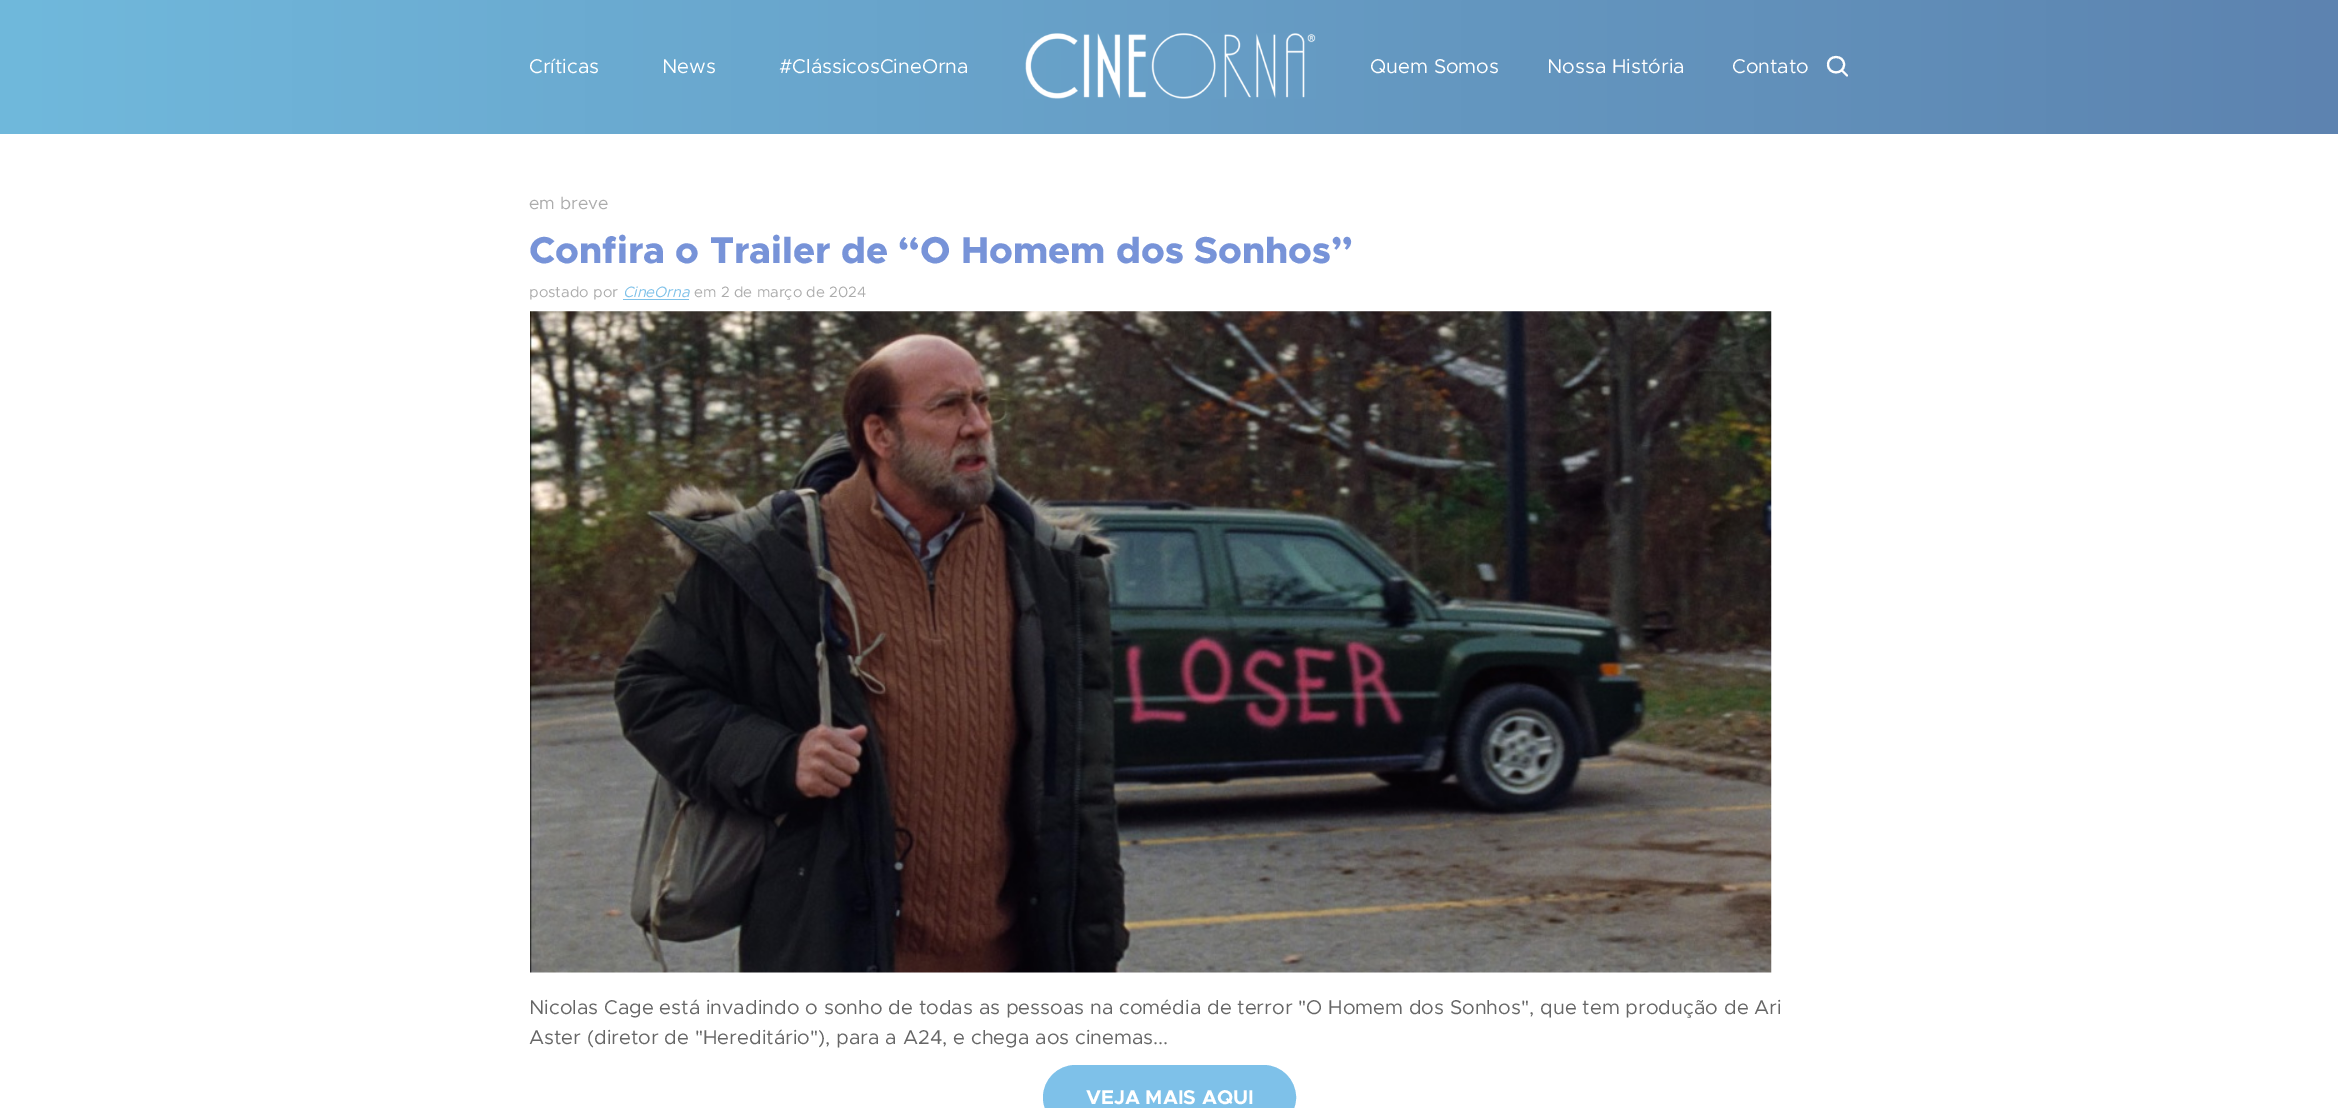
%!PS-Adobe-3.0
%%BoundingBox: 0 0 2338 1108
%%LanguageLevel: 3
%%Pages: 1
%%EndComments
%%BeginProlog
/setink { 3 { 255 div 3 1 roll } repeat setrgbcolor } def
/usefont { [ exch dup neg 0 0 3 -1 roll 0 0 ] selectfont } def
/drawtext { setink usefont moveto show } def
/fillbox { setink rectfill } def
/rrect { 5 dict begin { /r /h /w /y /x } { exch def } forall
  x r add y moveto x w add y 2 copy h add r arct x w add y h add x 1 index r arct
  x y h add x y r arct x y 2 copy exch w add exch r arct closepath end } def
/drawimage { 5 dict begin { /h /w /y /x /name } { exch def } forall
  gsave x y translate w h scale
  w h 8 [w 0 0 h 0 0] name (r) file false 3 colorimage grestore end } def
%%EndProlog
%%BeginSetup
<< /PageSize [2338 1108] >> setpagedevice
%%EndSetup
%%Page: 1 1
0 1108 translate 1 -1 scale
4 setmiterlimit
0 0 2338 1108 255 255 255 fillbox
gsave 0 0 moveto 2338 0 lineto 2338 134 lineto 0 134 lineto closepath clip newpath
<< /ShadingType 2 /ColorSpace /DeviceRGB /Coords [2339 67 0 67] /Extend [true true] /Function << /FunctionType 2 /Domain [0 1] /C0 [0.365 0.514 0.69] /C1 [0.439 0.725 0.863] /N 1 >> >> shfill grestore
(Críticas) 529 73 /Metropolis-Regular 20 255 255 255 drawtext
(News) 662 73 /Metropolis-Regular 20 255 255 255 drawtext
(#ClássicosCineOrna) 779 73 /Metropolis-Regular 20 255 255 255 drawtext
(assets/img1.rgb) 1025 33 291 66 drawimage
(Quem Somos) 1370 73 /Metropolis-Regular 20 255 255 255 drawtext
(Nossa História) 1547 73 /Metropolis-Regular 20 255 255 255 drawtext
(Contato) 1732 73 /Metropolis-Regular 20 255 255 255 drawtext
2.1 setlinewidth
1 setlinecap
1 setlinejoin
1841.5 70 moveto 1847 75.5 lineto 1844 64.5 moveto 1844 75 1828 75 1828 64.5 curveto 1828 54.5 1844 54.5 1844 64.5 curveto closepath stroke
(em breve) 529 209 /Metropolis-Regular 17.5 172 172 172 drawtext
(Confira o Trailer de “O Homem dos Sonhos”) 529 263 /Metropolis-ExtraBold 37.5 119 147 216 drawtext
(postado por) 529 297 /Metropolis-Regular 15 172 172 172 drawtext
(CineOrna) 623 297 /Metropolis-Italic 15 126 193 233 drawtext
623 299 66 1 126 193 233 fillbox
(em 2 de março de 2024) 694 297 /Metropolis-Regular 15 172 172 172 drawtext
(assets/img2.rgb) 530 311 1242 662 drawimage
(Nicolas Cage está invadindo o sonho de todas as pessoas na comédia de terror "O Homem dos Sonhos", que tem produção de Ari) 529 1014 /Metropolis-Regular 20 102 102 102 drawtext
(Aster \(diretor de "Hereditário"\), para a A24, e chega aos cinemas...) 529 1044 /Metropolis-Regular 20 102 102 102 drawtext
126 193 233 setink
1044.5 1066.5 250 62 31 rrect gsave fill grestore
3 setlinewidth
0 setlinecap
0 setlinejoin
stroke
(VEJA MAIS AQUI) 1086 1104 /Metropolis-Bold 20 255 255 255 drawtext
showpage
%%EOF
